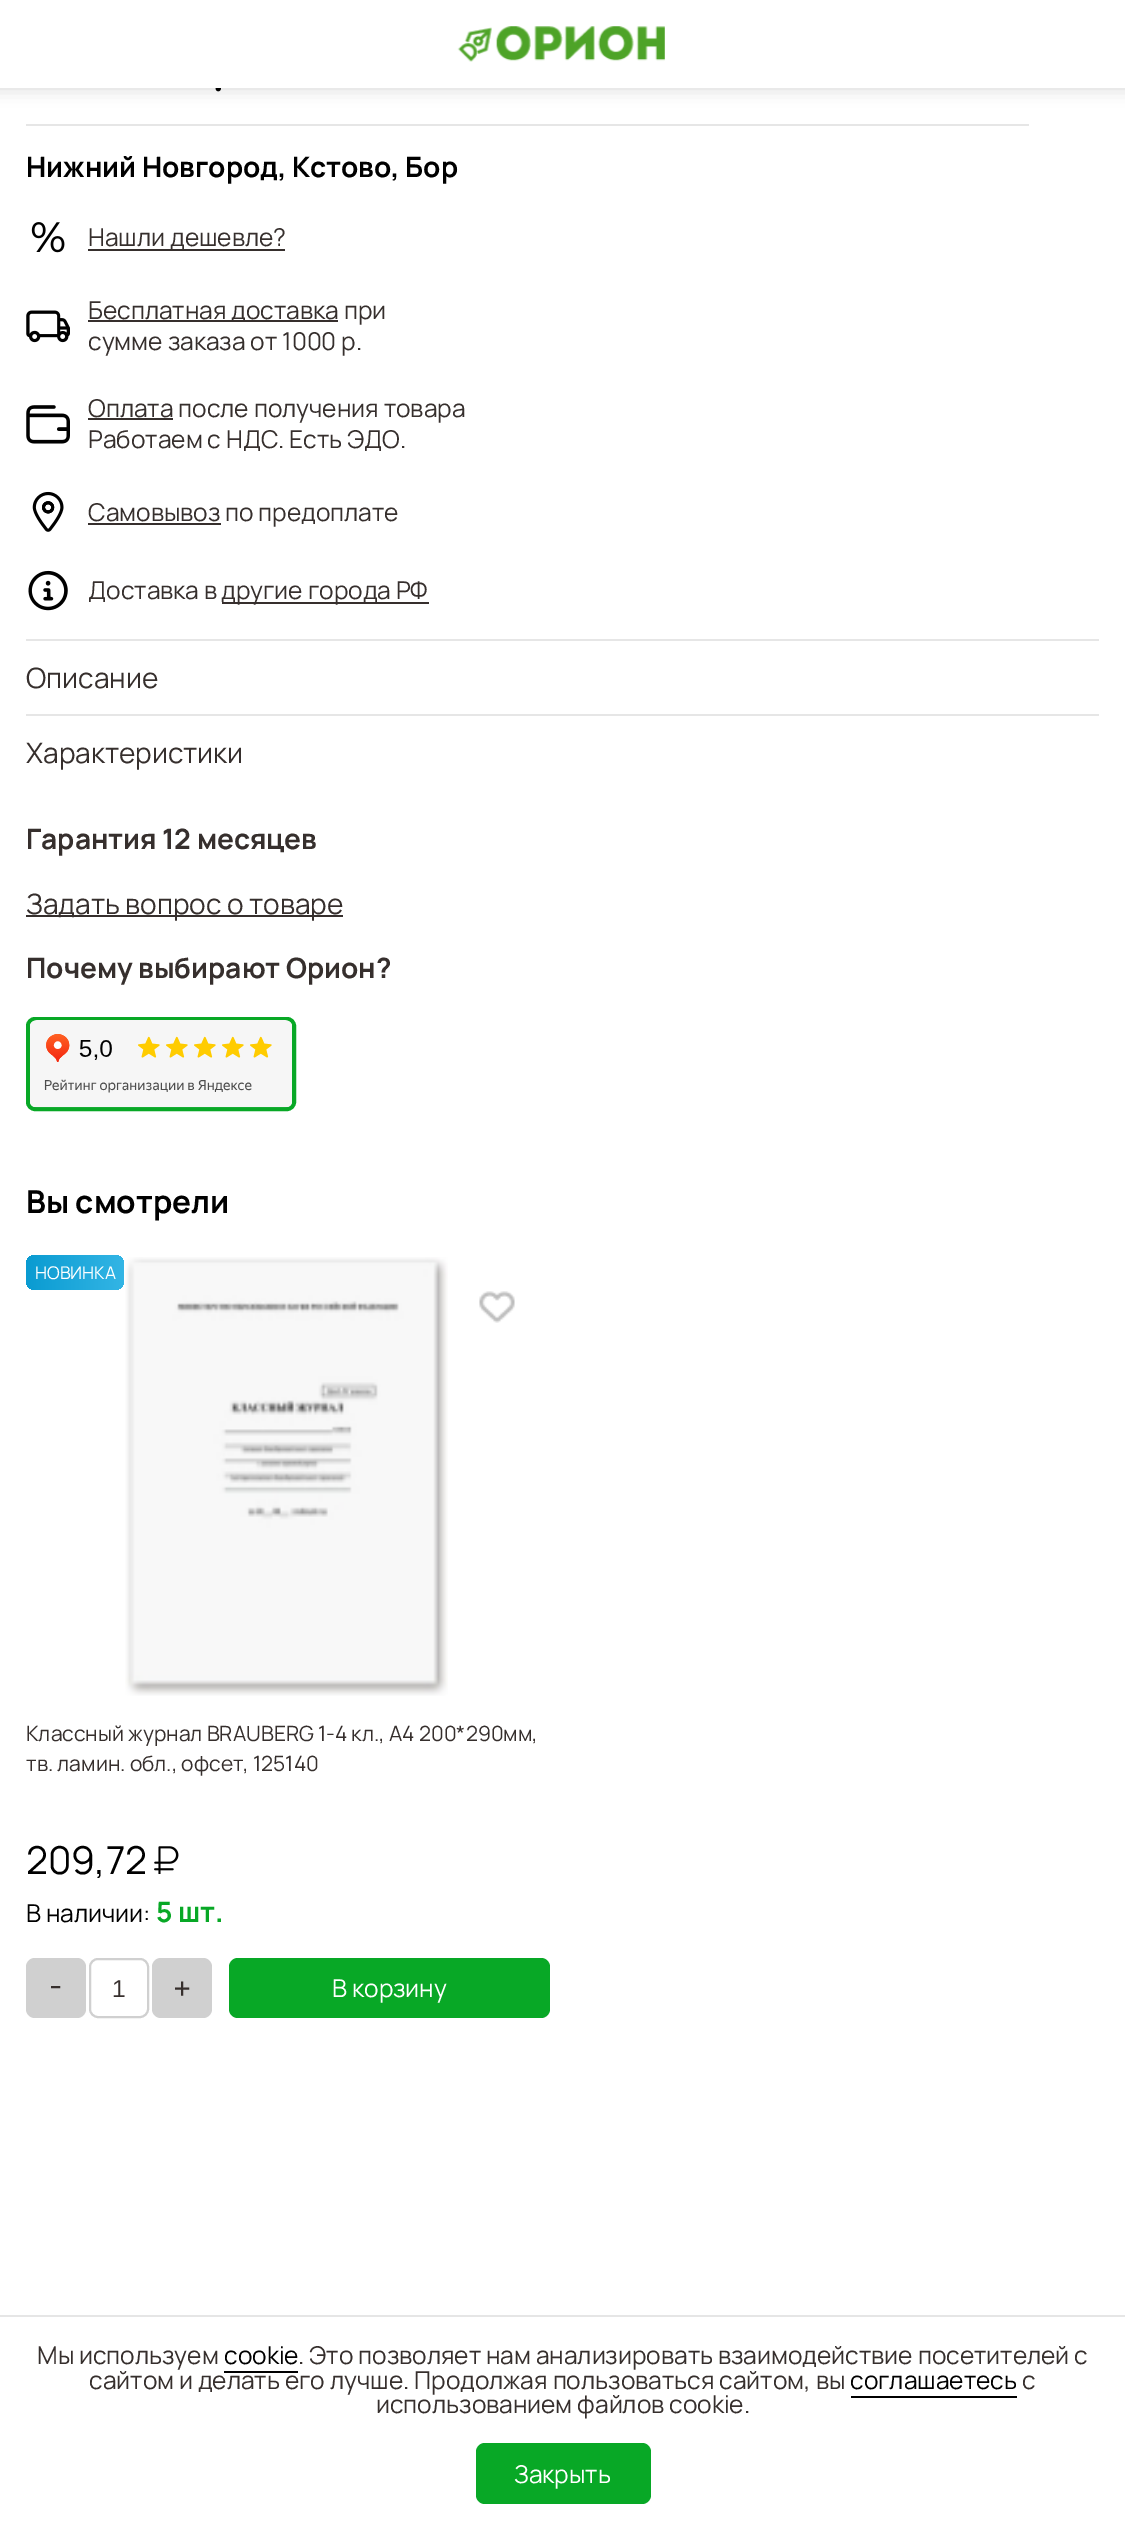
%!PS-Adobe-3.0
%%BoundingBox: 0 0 1125 2529
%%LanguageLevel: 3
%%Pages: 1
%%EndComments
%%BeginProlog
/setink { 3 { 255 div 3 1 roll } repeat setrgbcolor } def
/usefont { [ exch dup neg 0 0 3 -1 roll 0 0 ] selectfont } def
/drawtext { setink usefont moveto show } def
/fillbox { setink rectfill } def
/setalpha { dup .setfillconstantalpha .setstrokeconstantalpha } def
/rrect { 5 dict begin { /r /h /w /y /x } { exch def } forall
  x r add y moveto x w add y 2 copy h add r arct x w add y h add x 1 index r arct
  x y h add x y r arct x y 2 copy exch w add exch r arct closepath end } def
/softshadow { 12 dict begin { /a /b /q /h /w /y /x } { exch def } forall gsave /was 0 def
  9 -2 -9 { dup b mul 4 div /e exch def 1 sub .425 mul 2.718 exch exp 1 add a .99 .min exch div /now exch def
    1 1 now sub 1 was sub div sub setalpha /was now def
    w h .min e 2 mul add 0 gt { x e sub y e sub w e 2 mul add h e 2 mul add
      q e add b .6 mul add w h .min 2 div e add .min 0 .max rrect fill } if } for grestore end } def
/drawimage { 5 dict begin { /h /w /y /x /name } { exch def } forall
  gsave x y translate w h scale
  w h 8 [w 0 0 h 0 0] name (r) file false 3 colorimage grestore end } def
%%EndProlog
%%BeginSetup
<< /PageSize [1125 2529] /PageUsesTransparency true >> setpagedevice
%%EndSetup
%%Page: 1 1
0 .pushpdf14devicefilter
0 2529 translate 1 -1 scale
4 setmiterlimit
0 0 1125 2529 255 255 255 fillbox
(assets/img2.rgb) 215 88 6 4 drawimage
0 0 0 setink
-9 -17 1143 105 0 9 0.17 softshadow
0 0 1125 88 255 255 255 fillbox
(assets/img1.rgb) 457 26 208 36 drawimage
26 124 1003 2 230 230 230 fillbox
(Нижний Новгород, Кстово, Бор) 26 177 /Manrope-Bold 28 0 0 0 drawtext
(assets/img3.rgb) 31 222 34 31 drawimage
(Нашли дешевле?) 88 246 /Manrope-Regular 24.5 54 47 45 drawtext
88 249 197 2 54 47 45 fillbox
(assets/img4.rgb) 26 310 44 33 drawimage
88 320 250 2 54 47 45 fillbox
(Бесплатная доставка при) 88 319 /Manrope-Regular 24.5 54 47 45 drawtext
(сумме заказа от 1000 р.) 88 350 /Manrope-Regular 24.5 54 47 45 drawtext
(assets/img5.rgb) 26 405 44 39 drawimage
88 418 85 2 54 47 45 fillbox
(Оплата после получения товара) 88 417 /Manrope-Regular 24.5 54 47 45 drawtext
(Работаем с НДС. Есть ЭДО.) 88 448 /Manrope-Regular 24.5 54 47 45 drawtext
(assets/img6.rgb) 32 491 32 41 drawimage
88 523 133 2 54 47 45 fillbox
(Самовывоз по предоплате) 88 521 /Manrope-Regular 24.5 54 47 45 drawtext
(assets/img7.rgb) 28 570 40 41 drawimage
(Доставка в) 88 599 /Manrope-Regular 24.5 54 47 45 drawtext
222 602 207 2 54 47 45 fillbox
(другие города РФ) 221 599 /Manrope-Regular 24.5 54 47 45 drawtext
26 639 1073 2 230 230 230 fillbox
(Описание) 26 688 /Manrope-Regular 28 54 47 45 drawtext
26 714 1073 2 230 230 230 fillbox
(Характеристики) 26 763 /Manrope-Regular 28 54 47 45 drawtext
(Гарантия 12 месяцев) 26 849 /Manrope-Bold 28 54 47 45 drawtext
26 915 317 2 54 47 45 fillbox
(Задать вопрос о товаре) 26 914 /Manrope-Regular 28 54 47 45 drawtext
(Почему выбирают Орион?) 26 978 /Manrope-Bold 28 54 47 45 drawtext
8 168 38 setink
4 setlinewidth
28 1019 266 90 7 rrect stroke
(assets/img8.rgb) 30 1020 262 88 drawimage
(Вы смотрели) 26 1213 /Manrope-Bold 31.5 0 0 0 drawtext
gsave 26 1255 98 35 9 rrect clip newpath
<< /ShadingType 2 /ColorSpace /DeviceRGB /Coords [26 1272 124 1272] /Extend [true true] /Function << /FunctionType 2 /Domain [0 1] /C0 [0.039 0.608 0.82] /C1 [0.2 0.71 0.898] /N 1 >> >> shfill grestore
(НОВИНКА) 35 1279 /Manrope-Regular 17.5 255 255 255 drawtext
(assets/img9.rgb) 479 1291 36 32 drawimage
(assets/img10.rgb) 125 1257 323 439 drawimage
(Классный журнал BRAUBERG 1-4 кл., А4 200*290мм,) 26 1741 /Manrope-Regular 21 54 47 45 drawtext
(тв. ламин. обл., офсет, 125140) 26 1771 /Manrope-Regular 21 54 47 45 drawtext
(209,72) 26 1874 /Manrope-Regular 38.5 0 0 0 drawtext
(assets/img11.rgb) 154 1846 25 28 drawimage
(В наличии:) 26 1922 /Manrope-Regular 24.5 0 0 0 drawtext
(5 шт.) 156 1922 /Manrope-Bold 28 8 168 38 drawtext
208 208 208 setink
26 1958 60 60 9 rrect fill
(-) 49 1997 /Manrope-Medium 31.5 54 47 45 drawtext
208 208 208 setink
2 setlinewidth
90 1959 58 58 8 rrect stroke
(1) 112 1997 /LiberationSans-Regular 24.5 54 47 45 drawtext
208 208 208 setink
152 1958 60 60 9 rrect fill
(+) 173 2000 /Manrope-Medium 31.5 54 47 45 drawtext
8 168 38 setink
229 1958 321 60 9 rrect fill
(В корзину) 332 1997 /Manrope-Regular 24.5 255 255 255 drawtext
0 2315 1125 2 230 230 230 fillbox
(Мы используем) 37 2364 /Manrope-Regular 24.5 54 47 45 drawtext
(cookie) 224 2364 /Manrope-Regular 24.5 0 0 0 drawtext
224 2371 74 2 0 0 0 fillbox
(. Это позволяет нам анализировать взаимодействие посетителей с) 298 2364 /Manrope-Regular 24.5 54 47 45 drawtext
(сайтом и делать его лучше. Продолжая пользоваться сайтом, вы) 89 2389 /Manrope-Regular 24.5 54 47 45 drawtext
(соглашаетесь) 850 2389 /Manrope-Regular 24.5 0 0 0 drawtext
851 2396 166 2 0 0 0 fillbox
(с) 1022 2389 /Manrope-Regular 24.5 54 47 45 drawtext
(использованием файлов cookie.) 376 2413 /Manrope-Regular 24.5 54 47 45 drawtext
8 168 38 setink
476 2443 175 61 9 rrect fill
(Закрыть) 514 2483 /Manrope-Regular 24.5 255 255 255 drawtext
.poppdf14devicefilter showpage
%%EOF
